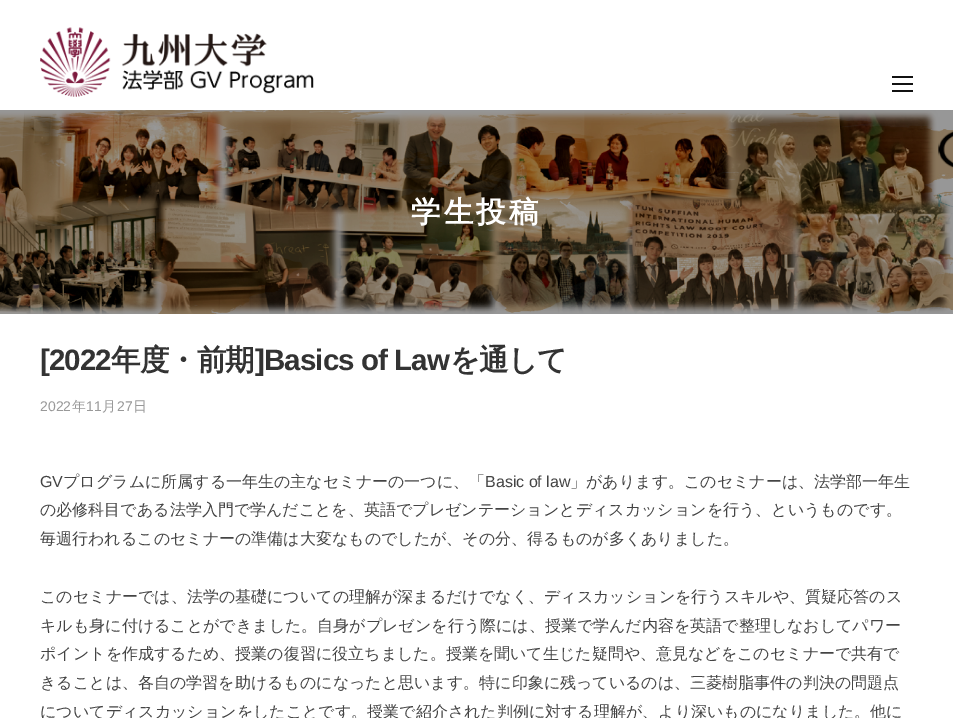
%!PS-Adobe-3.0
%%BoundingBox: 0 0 953 718
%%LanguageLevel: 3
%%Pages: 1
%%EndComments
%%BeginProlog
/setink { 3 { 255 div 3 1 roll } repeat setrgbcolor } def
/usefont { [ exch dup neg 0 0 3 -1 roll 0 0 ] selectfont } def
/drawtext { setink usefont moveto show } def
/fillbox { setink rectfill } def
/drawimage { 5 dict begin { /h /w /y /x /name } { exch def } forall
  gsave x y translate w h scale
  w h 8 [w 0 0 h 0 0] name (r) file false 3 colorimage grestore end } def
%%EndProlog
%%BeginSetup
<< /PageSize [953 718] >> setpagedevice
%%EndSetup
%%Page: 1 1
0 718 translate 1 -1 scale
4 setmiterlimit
0 0 953 718 255 255 255 fillbox
(assets/img1.rgb) 40 27 274 70 drawimage
892 83 21 2 17 17 17 fillbox
892 76 21 2 17 17 17 fillbox
892 90 21 2 17 17 17 fillbox
(assets/img2.rgb) 0 110 953 204 drawimage
/WenQuanYiZenHei-Bold 29.5 usefont
255 255 255 setink
411 222 moveto 3 0 (学生投稿) ashow
/LiberationSans-Bold 29.5 usefont
51 51 51 setink
40 370 moveto -0.9 0 ([2022) ashow
/WenQuanYiZenHei-Bold 29.5 usefont
111 370 moveto -0.9 0 (年度・前期) ashow
/LiberationSans-Bold 29.5 usefont
255 370 moveto -0.9 0 (]Basics of Law) ashow
/WenQuanYiZenHei-Bold 29.5 usefont
450 370 moveto -0.9 0 (を通して) ashow
(2022) 40 411 /LiberationSans-Regular 14 153 153 153 drawtext
(年) 72 411 /WenQuanYiZenHei-Medium 14 153 153 153 drawtext
(11) 86 411 /LiberationSans-Regular 14 153 153 153 drawtext
(月) 102 411 /WenQuanYiZenHei-Medium 14 153 153 153 drawtext
(27) 117 411 /LiberationSans-Regular 14 153 153 153 drawtext
(日) 133 411 /WenQuanYiZenHei-Medium 14 153 153 153 drawtext
(GV) 40 487 /LiberationSans-Regular 16 68 68 68 drawtext
(プログラムに所属する一年生の主なセミナーの一つに、「) 63 487 /WenQuanYiZenHei-Medium 16 68 68 68 drawtext
(Basic of law) 485 487 /LiberationSans-Regular 16 68 68 68 drawtext
(」があります。このセミナーは、法学部一年生) 570 487 /WenQuanYiZenHei-Medium 16 68 68 68 drawtext
(の必修科目である法学入門で学んだことを、英語でプレゼンテーションとディスカッションを行う、というものです。) 40 515 /WenQuanYiZenHei-Medium 16 68 68 68 drawtext
(毎週行われるこのセミナーの準備は大変なものでしたが、その分、得るものが多くありました。) 40 544 /WenQuanYiZenHei-Medium 16 68 68 68 drawtext
(このセミナーでは、法学の基礎についての理解が深まるだけでなく、ディスカッションを行うスキルや、質疑応答のス) 40 602 /WenQuanYiZenHei-Medium 16 68 68 68 drawtext
(キルも身に付けることができました。自身がプレゼンを行う際には、授業で学んだ内容を英語で整理しなおしてパワー) 40 631 /WenQuanYiZenHei-Medium 16 68 68 68 drawtext
(ポイントを作成するため、授業の復習に役立ちました。授業を聞いて生じた疑問や、意見などをこのセミナーで共有で) 40 659 /WenQuanYiZenHei-Medium 16 68 68 68 drawtext
(きることは、各自の学習を助けるものになったと思います。特に印象に残っているのは、三菱樹脂事件の判決の問題点) 40 688 /WenQuanYiZenHei-Medium 16 68 68 68 drawtext
(についてディスカッションをしたことです。授業で紹介された判例に対する理解が、より深いものになりました。他に) 40 717 /WenQuanYiZenHei-Medium 16 68 68 68 drawtext
showpage
%%EOF
